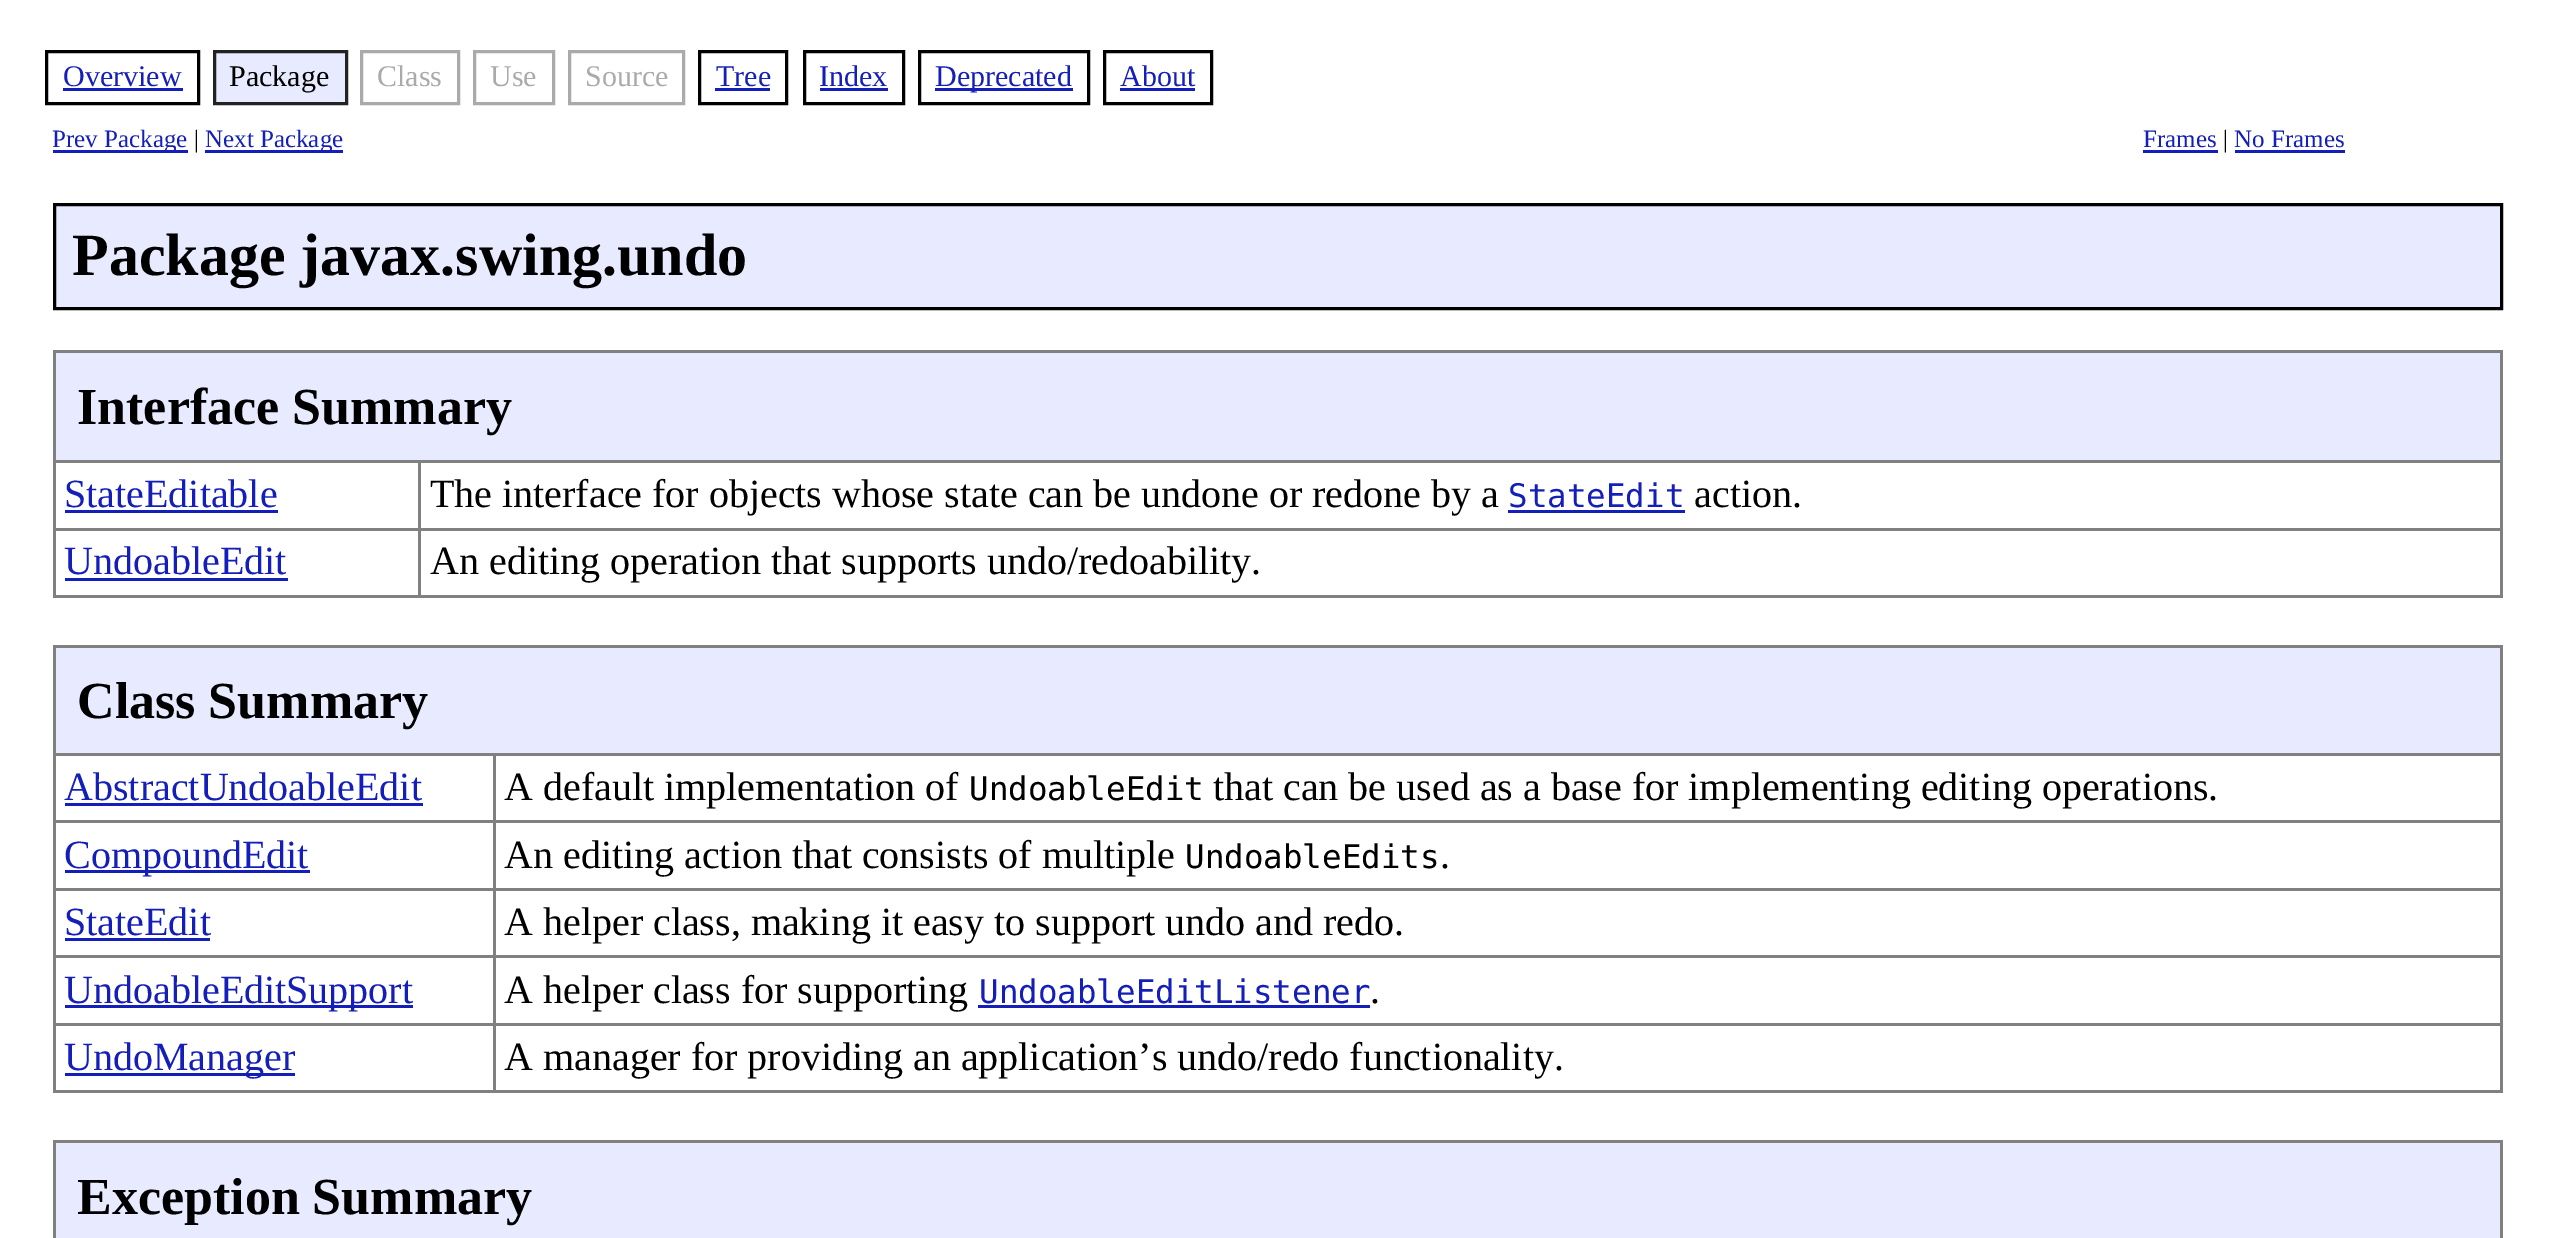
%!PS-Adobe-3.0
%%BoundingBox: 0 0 2553 1238
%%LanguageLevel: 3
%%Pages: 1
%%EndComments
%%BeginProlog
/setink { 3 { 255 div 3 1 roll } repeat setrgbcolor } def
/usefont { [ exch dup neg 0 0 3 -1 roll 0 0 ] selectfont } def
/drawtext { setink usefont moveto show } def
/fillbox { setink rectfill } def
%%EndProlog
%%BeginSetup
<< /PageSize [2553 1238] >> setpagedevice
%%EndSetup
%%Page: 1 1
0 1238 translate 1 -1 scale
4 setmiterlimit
0 0 2553 1238 255 255 255 fillbox
0 0 0 setink
3 setlinewidth
46.5 51.5 152 52 rectstroke
(Overview) 63 86 /LiberationSerif-Regular 30 20 30 184 drawtext
63 88 120 3 20 30 184 fillbox
232 234 255 setink
214.5 51.5 moveto 346.5 51.5 lineto 346.5 103.5 lineto 214.5 103.5 lineto closepath gsave fill grestore
34 34 34 setink
stroke
(Package) 229 86 /LiberationSerif-Regular 30 0 0 0 drawtext
170 170 170 setink
361.5 51.5 97 52 rectstroke
(Class) 377 86 /LiberationSerif-Regular 30 170 170 170 drawtext
474.5 51.5 79 52 rectstroke
(Use) 490 86 /LiberationSerif-Regular 30 170 170 170 drawtext
569.5 51.5 114 52 rectstroke
(Source) 585 86 /LiberationSerif-Regular 30 170 170 170 drawtext
0 0 0 setink
699.5 51.5 87 52 rectstroke
(Tree) 716 86 /LiberationSerif-Regular 30 20 30 184 drawtext
715 88 55 3 20 30 184 fillbox
0 0 0 setink
804.5 51.5 99 52 rectstroke
(Index) 819 86 /LiberationSerif-Regular 30 20 30 184 drawtext
820 88 68 3 20 30 184 fillbox
0 0 0 setink
919.5 51.5 169 52 rectstroke
935 88 138 3 20 30 184 fillbox
(Deprecated) 935 86 /LiberationSerif-Regular 30 20 30 184 drawtext
0 0 0 setink
1104.5 51.5 107 52 rectstroke
(About) 1120 86 /LiberationSerif-Regular 30 20 30 184 drawtext
1120 88 75 3 20 30 184 fillbox
53 150 135 3 20 30 184 fillbox
(Prev Package) 52 147 /LiberationSerif-Regular 25 20 30 184 drawtext
(|) 194 147 /LiberationSerif-Regular 25 0 0 0 drawtext
205 150 138 3 20 30 184 fillbox
(Next Package) 205 147 /LiberationSerif-Regular 25 20 30 184 drawtext
(Frames) 2143 147 /LiberationSerif-Regular 25 20 30 184 drawtext
2143 150 75 3 20 30 184 fillbox
(|) 2223 147 /LiberationSerif-Regular 25 0 0 0 drawtext
(No Frames) 2234 147 /LiberationSerif-Regular 25 20 30 184 drawtext
2235 150 110 3 20 30 184 fillbox
232 234 255 setink
54.5 204.5 moveto 2501.5 204.5 lineto 2501.5 308.5 lineto 54.5 308.5 lineto closepath gsave fill grestore
0 0 0 setink
stroke
(Package javax.swing.undo) 72 275 /LiberationSerif-Bold 60 0 0 0 drawtext
53 350 2450 3 128 128 128 fillbox
2500 350 3 248 128 128 128 fillbox
53 595 2450 3 128 128 128 fillbox
53 350 3 248 128 128 128 fillbox
56 353 2444 107 232 234 255 fillbox
(Interface Summary) 77 424 /LiberationSerif-Bold 52 0 0 0 drawtext
418 460 2085 3 128 128 128 fillbox
418 528 2085 3 128 128 128 fillbox
418 528 3 70 128 128 128 fillbox
53 528 367 3 128 128 128 fillbox
418 460 3 70 128 128 128 fillbox
53 460 367 3 128 128 128 fillbox
(StateEditable) 64 507 /LiberationSerif-Regular 40 20 30 184 drawtext
65 510 213 3 20 30 184 fillbox
(The interface for objects whose state can be undone or redone by a) 430 507 /LiberationSerif-Regular 40 0 0 0 drawtext
(StateEdit) 1508 507 /DejaVuSansMono-Regular 32.5 20 30 184 drawtext
1508 510 177 3 20 30 184 fillbox
(action.) 1694 507 /LiberationSerif-Regular 40 0 0 0 drawtext
(UndoableEdit) 64 574 /LiberationSerif-Regular 40 20 30 184 drawtext
65 578 223 3 20 30 184 fillbox
(An editing operation that supports undo/redoability.) 430 574 /LiberationSerif-Regular 40 0 0 0 drawtext
53 645 2450 3 128 128 128 fillbox
2500 645 3 448 128 128 128 fillbox
53 1090 2450 3 128 128 128 fillbox
53 645 3 448 128 128 128 fillbox
56 648 2444 105 232 234 255 fillbox
(Class Summary) 77 718 /LiberationSerif-Bold 52 0 0 0 drawtext
493 753 2010 3 128 128 128 fillbox
493 820 2010 3 128 128 128 fillbox
493 888 2010 3 128 128 128 fillbox
493 955 2010 3 128 128 128 fillbox
493 1023 2010 3 128 128 128 fillbox
493 1023 3 70 128 128 128 fillbox
53 1023 442 3 128 128 128 fillbox
493 955 3 70 128 128 128 fillbox
53 955 442 3 128 128 128 fillbox
493 888 3 70 128 128 128 fillbox
53 888 442 3 128 128 128 fillbox
493 820 3 70 128 128 128 fillbox
53 820 442 3 128 128 128 fillbox
493 753 3 70 128 128 128 fillbox
53 753 442 3 128 128 128 fillbox
(AbstractUndoableEdit) 64 800 /LiberationSerif-Regular 40 20 30 184 drawtext
65 803 358 3 20 30 184 fillbox
(A default implementation of) 504 800 /LiberationSerif-Regular 40 0 0 0 drawtext
(UndoableEdit) 969 800 /DejaVuSansMono-Regular 32.5 0 0 0 drawtext
(that can be used as a base for implementing editing operations.) 1213 800 /LiberationSerif-Regular 40 0 0 0 drawtext
65 870 245 3 20 30 184 fillbox
(CompoundEdit) 64 868 /LiberationSerif-Regular 40 20 30 184 drawtext
(An editing action that consists of multiple) 504 868 /LiberationSerif-Regular 40 0 0 0 drawtext
(UndoableEdits) 1185 868 /DejaVuSansMono-Regular 32.5 0 0 0 drawtext
(.) 1440 868 /LiberationSerif-Regular 40 0 0 0 drawtext
(StateEdit) 64 935 /LiberationSerif-Regular 40 20 30 184 drawtext
65 938 145 3 20 30 184 fillbox
(A helper class, making it easy to support undo and redo.) 504 935 /LiberationSerif-Regular 40 0 0 0 drawtext
65 1005 348 3 20 30 184 fillbox
(UndoableEditSupport) 64 1003 /LiberationSerif-Regular 40 20 30 184 drawtext
(A helper class for supporting) 504 1003 /LiberationSerif-Regular 40 0 0 0 drawtext
(UndoableEditListener) 979 1003 /DejaVuSansMono-Regular 32.5 20 30 184 drawtext
978 1005 392 3 20 30 184 fillbox
(.) 1370 1003 /LiberationSerif-Regular 40 0 0 0 drawtext
65 1073 230 3 20 30 184 fillbox
(UndoManager) 64 1070 /LiberationSerif-Regular 40 20 30 184 drawtext
(A manager for providing an application’s undo/redo functionality.) 504 1070 /LiberationSerif-Regular 40 0 0 0 drawtext
53 1140 2450 3 128 128 128 fillbox
2500 1140 3 98 128 128 128 fillbox
53 1140 3 98 128 128 128 fillbox
56 1143 2444 95 232 234 255 fillbox
(Exception Summary) 77 1214 /LiberationSerif-Bold 52 0 0 0 drawtext
showpage
%%EOF
